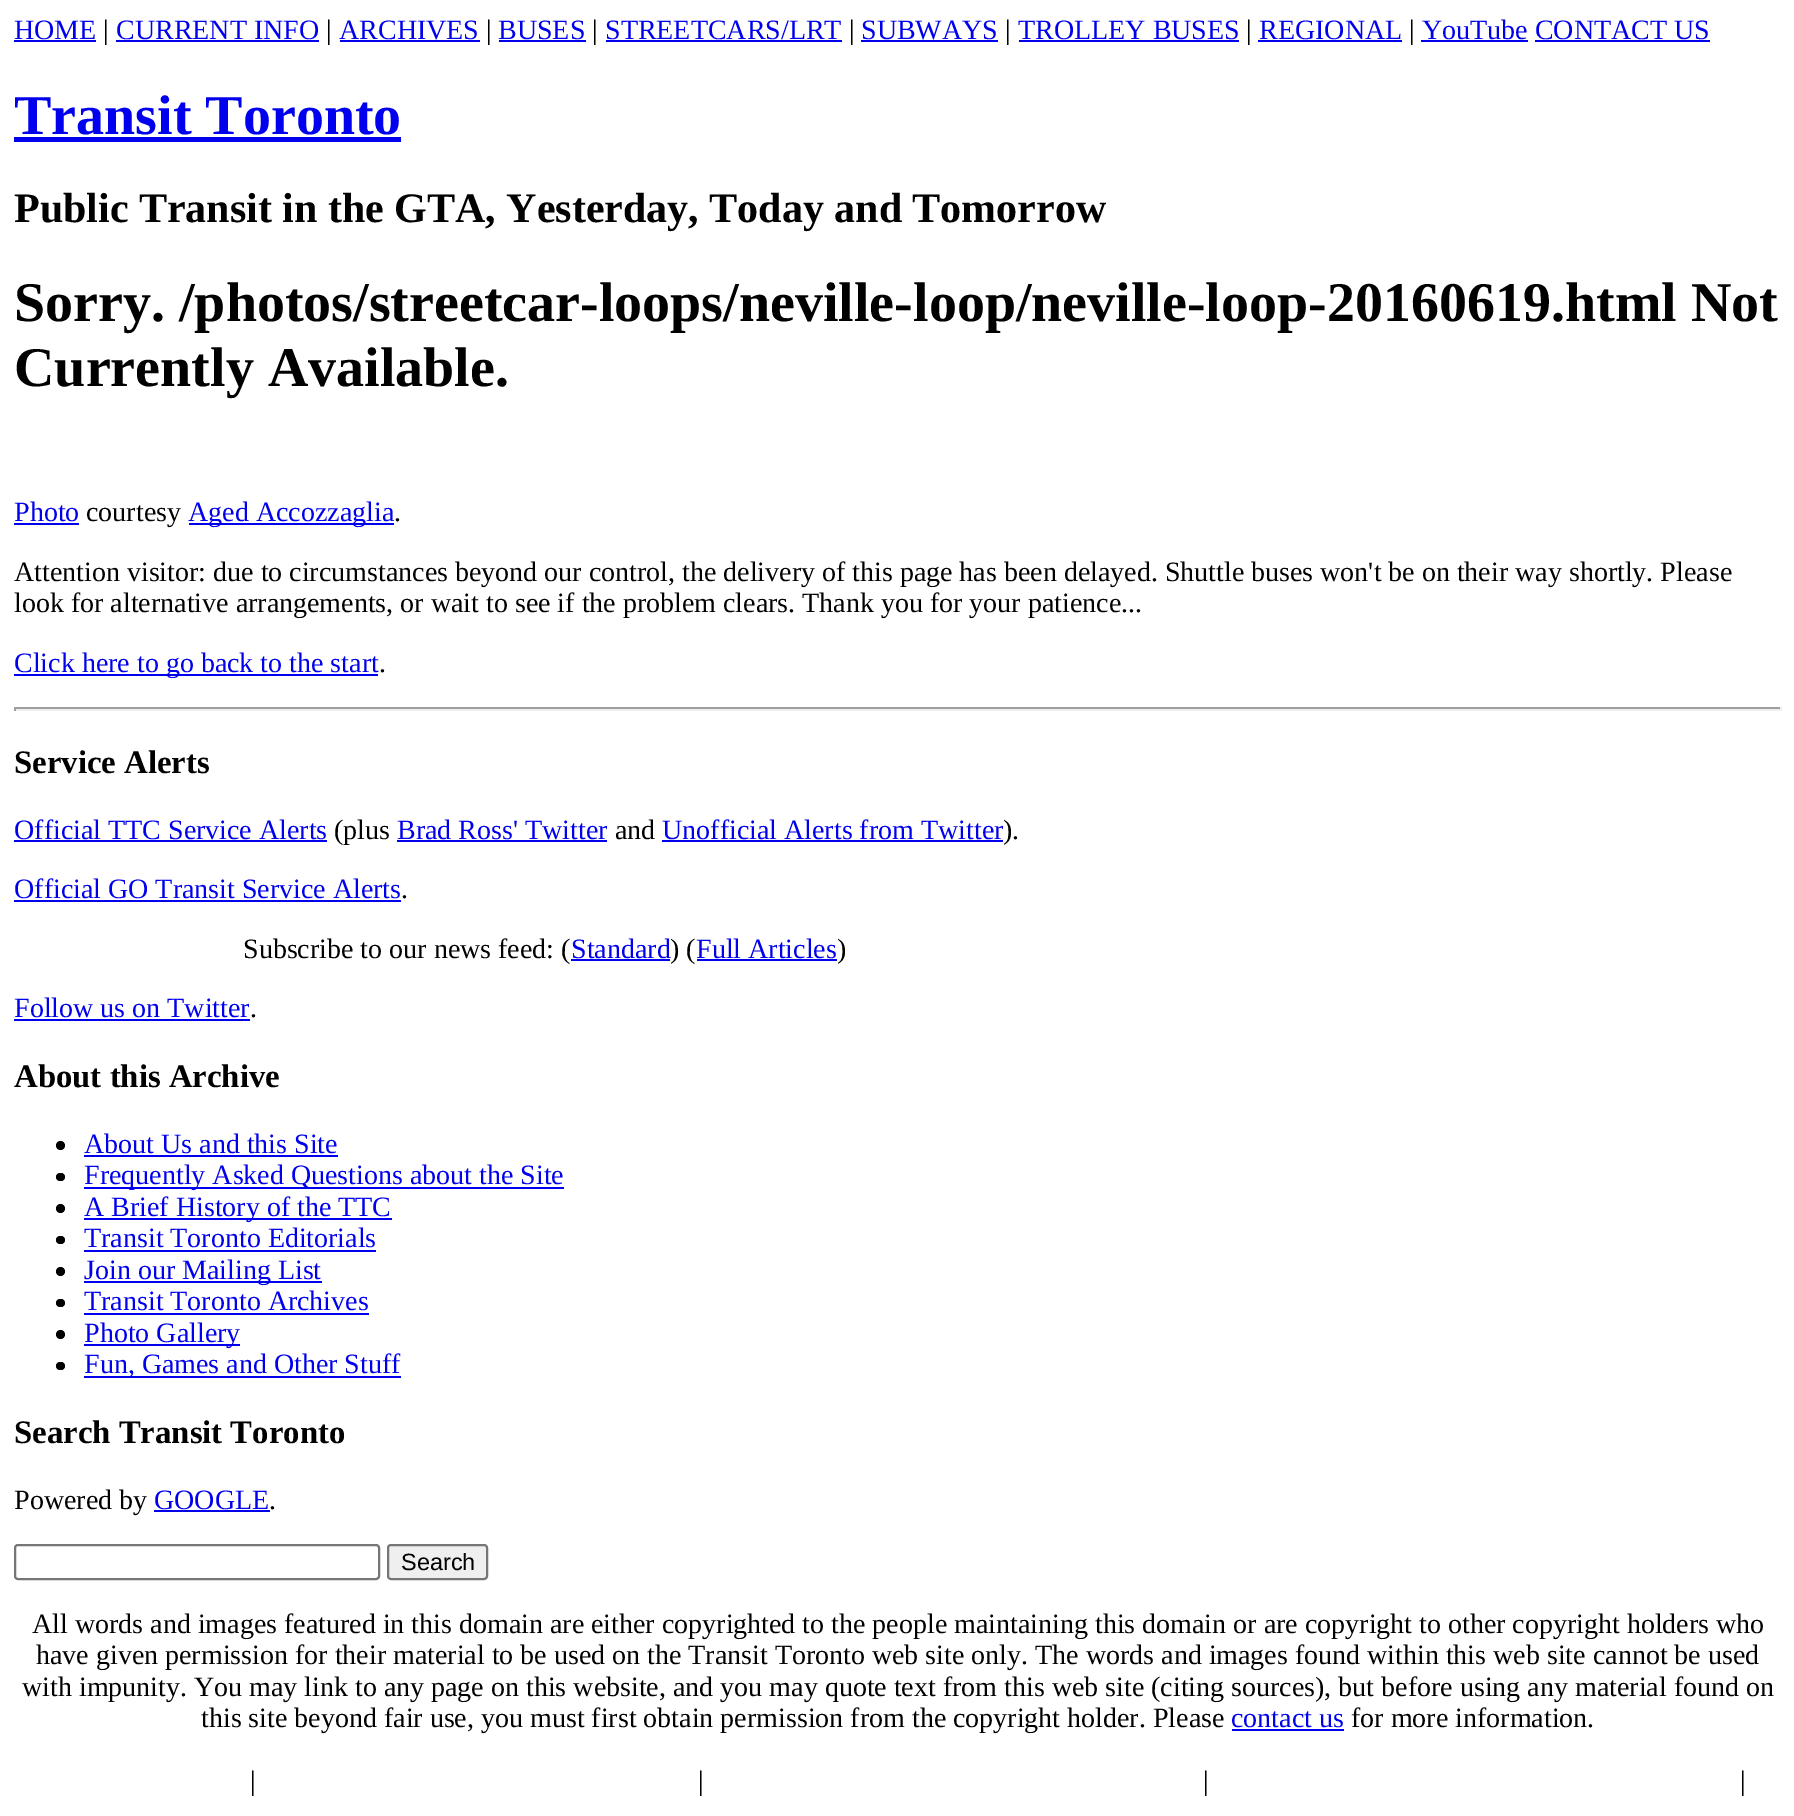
%!PS-Adobe-3.0
%%BoundingBox: 0 0 1794 1816
%%LanguageLevel: 3
%%Pages: 1
%%EndComments
%%BeginProlog
/setink { 3 { 255 div 3 1 roll } repeat setrgbcolor } def
/usefont { [ exch dup neg 0 0 3 -1 roll 0 0 ] selectfont } def
/drawtext { setink usefont moveto show } def
/fillbox { setink rectfill } def
/disc { newpath 0 360 arc closepath } def
/rrect { 5 dict begin { /r /h /w /y /x } { exch def } forall
  x r add y moveto x w add y 2 copy h add r arct x w add y h add x 1 index r arct
  x y h add x y r arct x y 2 copy exch w add exch r arct closepath end } def
%%EndProlog
%%BeginSetup
<< /PageSize [1794 1816] >> setpagedevice
%%EndSetup
%%Page: 1 1
0 1816 translate 1 -1 scale
4 setmiterlimit
0 0 1794 1816 255 255 255 fillbox
(HOME) 14 39 /LiberationSerif-Regular 28 0 0 238 drawtext
14 40 82 2 0 0 238 fillbox
(|) 103 39 /LiberationSerif-Regular 28 0 0 0 drawtext
(CURRENT INFO) 116 39 /LiberationSerif-Regular 28 0 0 238 drawtext
116 40 203 2 0 0 238 fillbox
(|) 326 39 /LiberationSerif-Regular 28 0 0 0 drawtext
(ARCHIVES) 339 39 /LiberationSerif-Regular 28 0 0 238 drawtext
340 40 140 2 0 0 238 fillbox
(|) 486 39 /LiberationSerif-Regular 28 0 0 0 drawtext
(BUSES) 498 39 /LiberationSerif-Regular 28 0 0 238 drawtext
499 40 87 2 0 0 238 fillbox
(|) 592 39 /LiberationSerif-Regular 28 0 0 0 drawtext
(STREETCARS/LRT) 605 39 /LiberationSerif-Regular 28 0 0 238 drawtext
606 40 236 2 0 0 238 fillbox
(|) 849 39 /LiberationSerif-Regular 28 0 0 0 drawtext
(SUBWAYS) 861 39 /LiberationSerif-Regular 28 0 0 238 drawtext
861 40 137 2 0 0 238 fillbox
(|) 1005 39 /LiberationSerif-Regular 28 0 0 0 drawtext
(TROLLEY BUSES) 1018 39 /LiberationSerif-Regular 28 0 0 238 drawtext
1019 40 220 2 0 0 238 fillbox
(|) 1246 39 /LiberationSerif-Regular 28 0 0 0 drawtext
(REGIONAL) 1259 39 /LiberationSerif-Regular 28 0 0 238 drawtext
1258 40 144 2 0 0 238 fillbox
(|) 1409 39 /LiberationSerif-Regular 28 0 0 0 drawtext
(YouTube CONTACT US) 1422 39 /LiberationSerif-Regular 28 0 0 238 drawtext
1421 40 107 2 0 0 238 fillbox
1535 40 175 2 0 0 238 fillbox
(Transit Toronto) 14 134 /LiberationSerif-Bold 56 0 0 238 drawtext
14 137 387 5 0 0 238 fillbox
(Public Transit in the GTA, Yesterday, Today and Tomorrow) 14 222 /LiberationSerif-Bold 42 0 0 0 drawtext
(Sorry. /photos/streetcar-loops/neville-loop/neville-loop-20160619.html Not) 14 321 /LiberationSerif-Bold 56 0 0 0 drawtext
(Currently Available.) 14 386 /LiberationSerif-Bold 56 0 0 0 drawtext
(Photo) 14 521 /LiberationSerif-Regular 28 0 0 238 drawtext
14 523 65 2 0 0 238 fillbox
(courtesy) 86 521 /LiberationSerif-Regular 28 0 0 0 drawtext
189 523 205 2 0 0 238 fillbox
(Aged Accozzaglia) 188 521 /LiberationSerif-Regular 28 0 0 238 drawtext
(.) 394 521 /LiberationSerif-Regular 28 0 0 0 drawtext
(Attention visitor: due to circumstances beyond our control, the delivery of this page has been delayed. Shuttle buses won't be on their way shortly. Please) 14 581 /LiberationSerif-Regular 28 0 0 0 drawtext
(look for alternative arrangements, or wait to see if the problem clears. Thank you for your patience...) 14 612 /LiberationSerif-Regular 28 0 0 0 drawtext
14 674 364 2 0 0 238 fillbox
(Click here to go back to the start) 14 672 /LiberationSerif-Regular 28 0 0 238 drawtext
(.) 379 672 /LiberationSerif-Regular 28 0 0 0 drawtext
14 707 1768 2 159 159 159 fillbox
1780 707 2 4 238 238 238 fillbox
14 709 1768 2 238 238 238 fillbox
14 707 2 4 159 159 159 fillbox
(Service Alerts) 14 773 /LiberationSerif-Bold 32.75 0 0 0 drawtext
(Official TTC Service Alerts) 14 839 /LiberationSerif-Regular 28 0 0 238 drawtext
14 840 313 2 0 0 238 fillbox
(\(plus) 334 839 /LiberationSerif-Regular 28 0 0 0 drawtext
(Brad Ross' Twitter) 397 839 /LiberationSerif-Regular 28 0 0 238 drawtext
397 840 210 2 0 0 238 fillbox
(and) 615 839 /LiberationSerif-Regular 28 0 0 0 drawtext
(Unofficial Alerts from Twitter) 662 839 /LiberationSerif-Regular 28 0 0 238 drawtext
662 840 341 2 0 0 238 fillbox
(\).) 1003 839 /LiberationSerif-Regular 28 0 0 0 drawtext
(Official GO Transit Service Alerts) 14 898 /LiberationSerif-Regular 28 0 0 238 drawtext
14 900 387 2 0 0 238 fillbox
(.) 401 898 /LiberationSerif-Regular 28 0 0 0 drawtext
(Subscribe to our news feed: \() 243 958 /LiberationSerif-Regular 28 0 0 0 drawtext
(Standard) 571 958 /LiberationSerif-Regular 28 0 0 238 drawtext
571 959 99 2 0 0 238 fillbox
(\) \() 670 958 /LiberationSerif-Regular 28 0 0 0 drawtext
(Full Articles) 696 958 /LiberationSerif-Regular 28 0 0 238 drawtext
697 959 140 2 0 0 238 fillbox
(\)) 837 958 /LiberationSerif-Regular 28 0 0 0 drawtext
(Follow us on Twitter) 14 1017 /LiberationSerif-Regular 28 0 0 238 drawtext
14 1019 236 2 0 0 238 fillbox
(.) 250 1017 /LiberationSerif-Regular 28 0 0 0 drawtext
(About this Archive) 14 1087 /LiberationSerif-Bold 32.75 0 0 0 drawtext
60.5 1145.5 4.5 disc fill
(About Us and this Site) 84 1153 /LiberationSerif-Regular 28 0 0 238 drawtext
84 1155 254 2 0 0 238 fillbox
0 0 0 setink
56 1173 9 8 4 rrect fill
84 1187 480 2 0 0 238 fillbox
(Frequently Asked Questions about the Site) 84 1184 /LiberationSerif-Regular 28 0 0 238 drawtext
0 0 0 setink
60.5 1208.5 4.5 disc fill
84 1218 308 2 0 0 238 fillbox
(A Brief History of the TTC) 84 1216 /LiberationSerif-Regular 28 0 0 238 drawtext
0 0 0 setink
56 1236 9 8 4 rrect fill
(Transit Toronto Editorials) 84 1247 /LiberationSerif-Regular 28 0 0 238 drawtext
84 1250 292 2 0 0 238 fillbox
0 0 0 setink
60.5 1271.5 4.5 disc fill
84 1281 238 2 0 0 238 fillbox
(Join our Mailing List) 84 1279 /LiberationSerif-Regular 28 0 0 238 drawtext
0 0 0 setink
56 1299 9 8 4 rrect fill
(Transit Toronto Archives) 84 1310 /LiberationSerif-Regular 28 0 0 238 drawtext
84 1313 285 2 0 0 238 fillbox
0 0 0 setink
60.5 1334.5 4.5 disc fill
84 1344 156 2 0 0 238 fillbox
(Photo Gallery) 84 1342 /LiberationSerif-Regular 28 0 0 238 drawtext
0 0 0 setink
56 1362 9 8 4 rrect fill
84 1376 317 2 0 0 238 fillbox
(Fun, Games and Other Stuff) 84 1373 /LiberationSerif-Regular 28 0 0 238 drawtext
(Search Transit Toronto) 14 1443 /LiberationSerif-Bold 32.75 0 0 0 drawtext
(Powered by) 14 1509 /LiberationSerif-Regular 28 0 0 0 drawtext
(GOOGLE) 154 1509 /LiberationSerif-Regular 28 0 0 238 drawtext
154 1510 116 2 0 0 238 fillbox
(.) 269 1509 /LiberationSerif-Regular 28 0 0 0 drawtext
118 118 118 setink
2 setlinewidth
15 1545 364 34 3 rrect stroke
239 239 239 setink
388 1545 99 34 3 rrect gsave fill grestore
118 118 118 setink
stroke
(Search) 401 1570 /LiberationSans-Regular 23.5 0 0 0 drawtext
(All words and images featured in this domain are either copyrighted to the people maintaining this domain or are copyright to other copyright holders who) 32 1633 /LiberationSerif-Regular 28 0 0 0 drawtext
(have given permission for their material to be used on the Transit Toronto web site only. The words and images found within this web site cannot be used) 36 1664 /LiberationSerif-Regular 28 0 0 0 drawtext
(with impunity. You may link to any page on this website, and you may quote text from this web site \(citing sources\), but before using any material found on) 22 1696 /LiberationSerif-Regular 28 0 0 0 drawtext
(this site beyond fair use, you must first obtain permission from the copyright holder. Please) 201 1727 /LiberationSerif-Regular 28 0 0 0 drawtext
(contact us) 1231 1727 /LiberationSerif-Regular 28 0 0 238 drawtext
1232 1729 112 2 0 0 238 fillbox
(for more information.) 1351 1727 /LiberationSerif-Regular 28 0 0 0 drawtext
(|) 250 1790 /LiberationSerif-Regular 28 0 0 0 drawtext
(|) 698 1790 /LiberationSerif-Regular 28 0 0 0 drawtext
(|) 1203 1790 /LiberationSerif-Regular 28 0 0 0 drawtext
(|) 1740 1790 /LiberationSerif-Regular 28 0 0 0 drawtext
showpage
%%EOF
